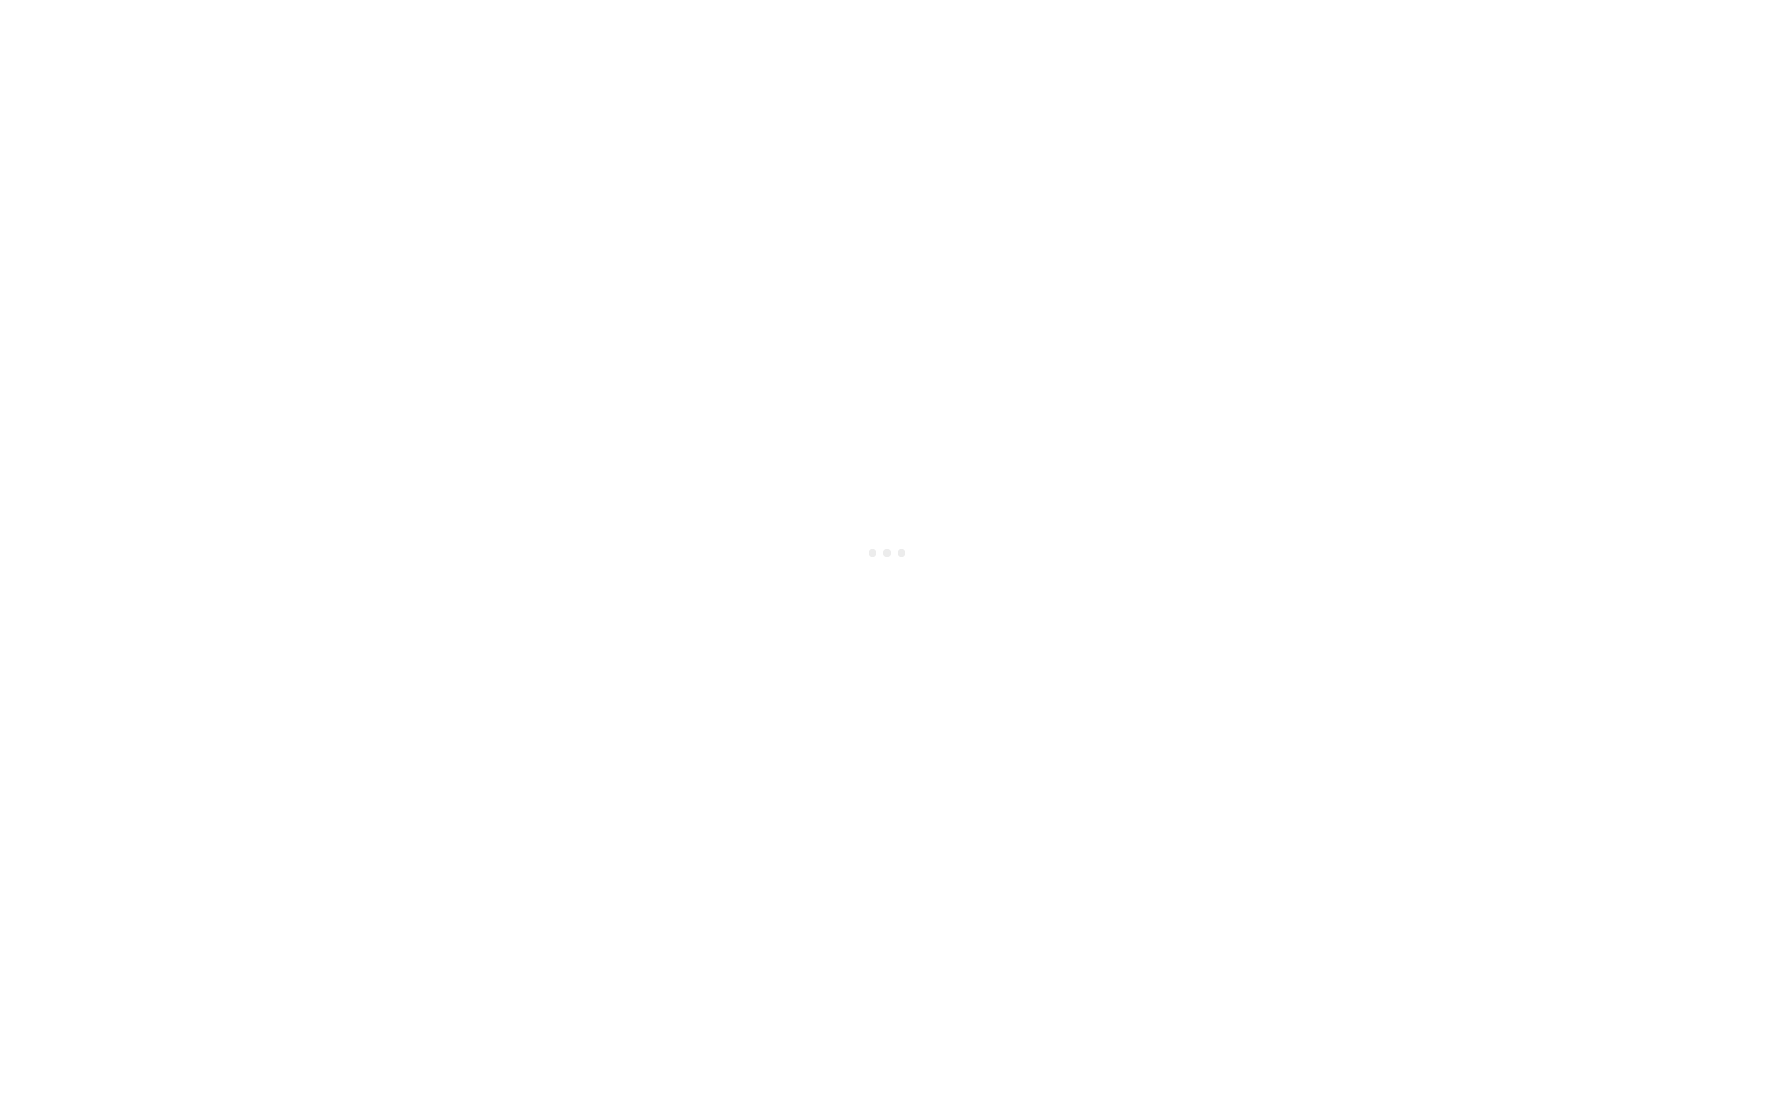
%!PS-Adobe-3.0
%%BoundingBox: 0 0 1774 1110
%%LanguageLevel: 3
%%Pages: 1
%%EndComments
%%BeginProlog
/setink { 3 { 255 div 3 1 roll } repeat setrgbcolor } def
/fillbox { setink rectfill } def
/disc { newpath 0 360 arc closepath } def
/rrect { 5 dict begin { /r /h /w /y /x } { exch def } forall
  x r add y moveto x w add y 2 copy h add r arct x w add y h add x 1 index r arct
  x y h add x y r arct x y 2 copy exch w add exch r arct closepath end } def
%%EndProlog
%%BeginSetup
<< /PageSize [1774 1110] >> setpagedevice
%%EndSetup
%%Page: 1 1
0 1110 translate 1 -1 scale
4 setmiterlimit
0 0 1774 1110 255 255 255 fillbox
236 236 236 setink
869 549 7 8 3.5 rrect fill
887 553 4 disc fill
898 549 7 8 3.5 rrect fill
showpage
%%EOF
